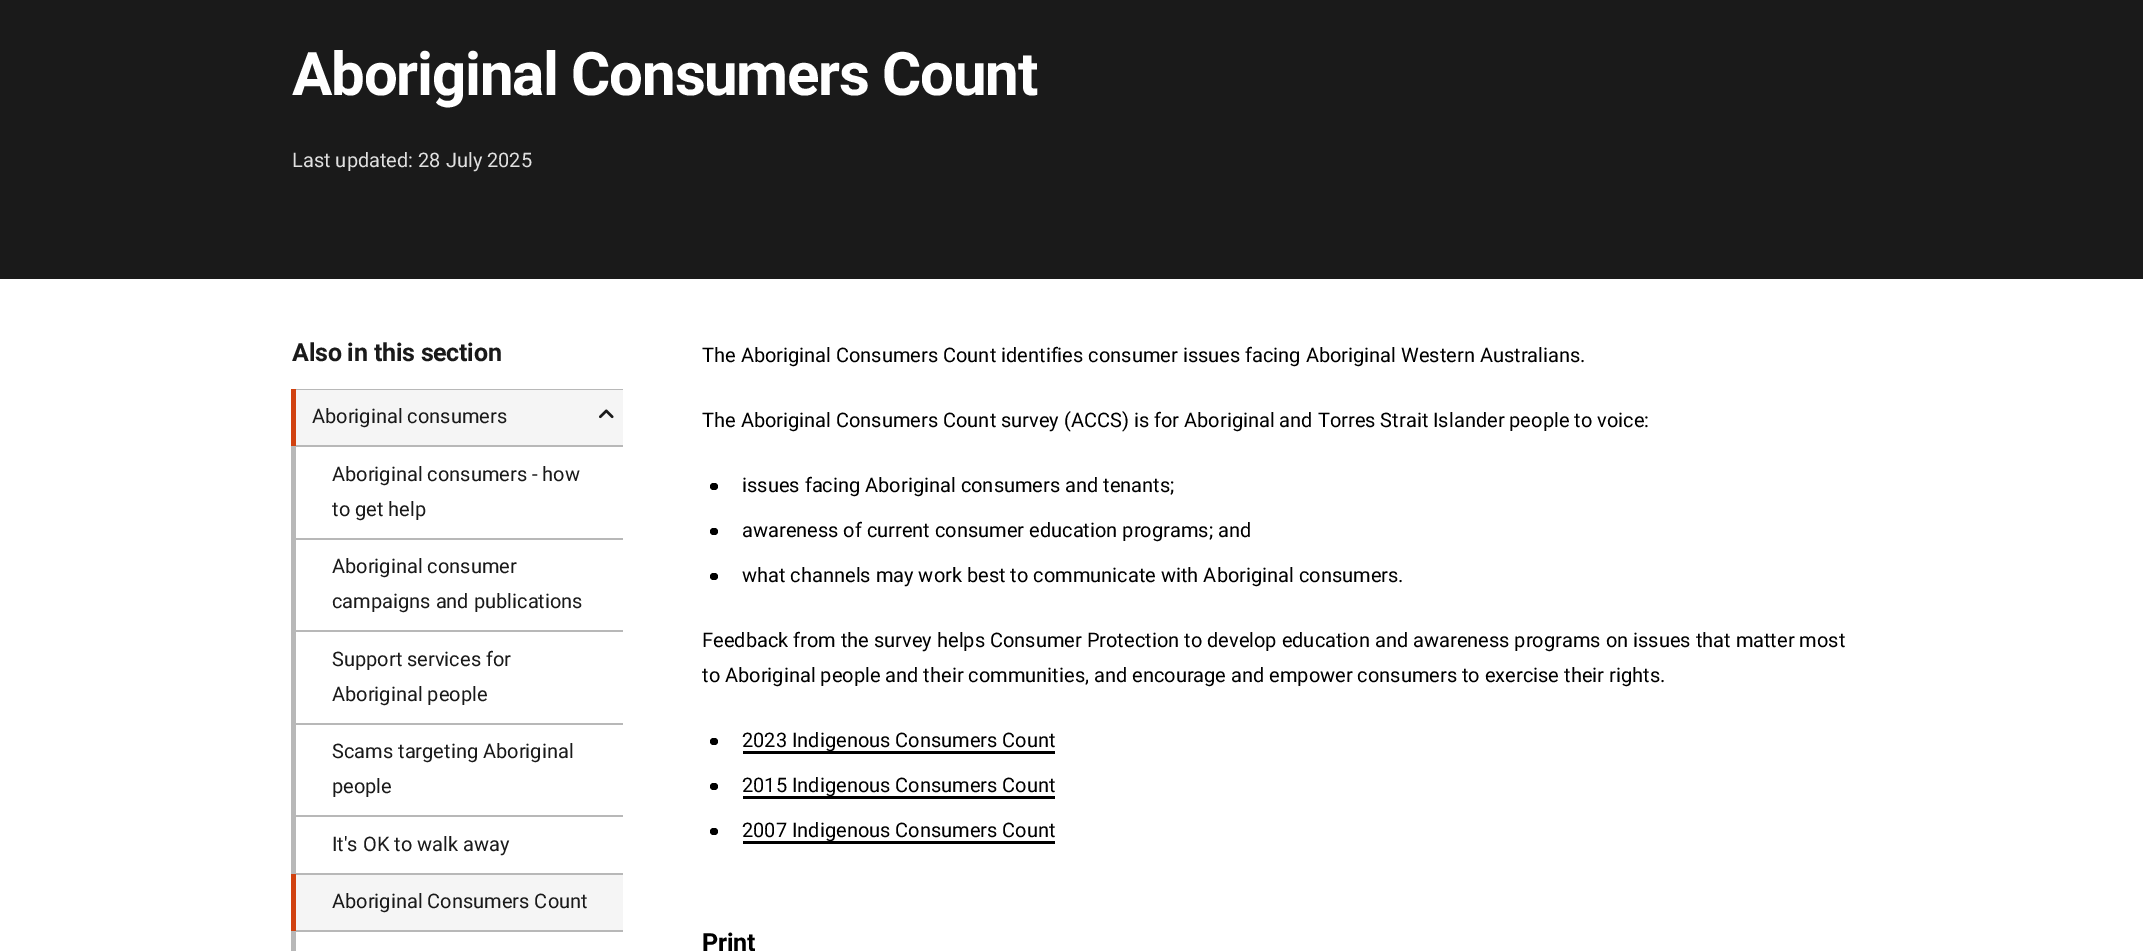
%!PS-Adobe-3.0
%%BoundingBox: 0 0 2143 951
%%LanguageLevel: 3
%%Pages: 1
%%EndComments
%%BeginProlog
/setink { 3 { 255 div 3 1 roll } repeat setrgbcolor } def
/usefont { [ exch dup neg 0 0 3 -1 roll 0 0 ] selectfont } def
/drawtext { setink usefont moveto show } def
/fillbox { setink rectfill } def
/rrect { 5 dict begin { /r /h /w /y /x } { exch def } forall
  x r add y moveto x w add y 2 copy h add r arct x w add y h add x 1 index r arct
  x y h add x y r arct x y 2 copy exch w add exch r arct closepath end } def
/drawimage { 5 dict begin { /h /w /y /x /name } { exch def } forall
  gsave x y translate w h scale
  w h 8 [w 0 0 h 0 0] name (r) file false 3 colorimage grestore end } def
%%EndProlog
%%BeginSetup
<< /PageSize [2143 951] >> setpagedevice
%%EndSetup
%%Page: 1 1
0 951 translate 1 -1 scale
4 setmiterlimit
0 0 2143 951 255 255 255 fillbox
0 0 2143 279 26 26 26 fillbox
/Heebo-Bold 60 usefont
255 255 255 setink
292 95 moveto -1.25 0 (Aboriginal Consumers Count) ashow
(Last updated: 28 July 2025) 292 167 /Heebo-Regular 20 224 224 224 drawtext
/Heebo-Bold 25 usefont
26 26 26 setink
292 361 moveto -0.25 0 (Also in this section) ashow
296 390 327 55 245 245 245 fillbox
293 389 330 1 184 184 184 fillbox
293 445 330 2 184 184 184 fillbox
291 389 5 57 209 66 16 fillbox
(Aboriginal consumers) 312 423 /Heebo-Regular 20 26 26 26 drawtext
(assets/img1.rgb) 599 409 15 10 drawimage
293 538 330 2 184 184 184 fillbox
291 446 5 93 184 184 184 fillbox
(Aboriginal consumers - how) 332 481 /Heebo-Regular 20 26 26 26 drawtext
(to get help) 332 516 /Heebo-Regular 20 26 26 26 drawtext
293 630 330 2 184 184 184 fillbox
291 539 5 92 184 184 184 fillbox
(Aboriginal consumer) 332 573 /Heebo-Regular 20 26 26 26 drawtext
(campaigns and publications) 332 608 /Heebo-Regular 20 26 26 26 drawtext
293 723 330 2 184 184 184 fillbox
291 631 5 93 184 184 184 fillbox
(Support services for) 332 666 /Heebo-Regular 20 26 26 26 drawtext
(Aboriginal people) 332 701 /Heebo-Regular 20 26 26 26 drawtext
293 815 330 2 184 184 184 fillbox
291 724 5 92 184 184 184 fillbox
(Scams targeting Aboriginal) 332 758 /Heebo-Regular 20 26 26 26 drawtext
(people) 332 793 /Heebo-Regular 20 26 26 26 drawtext
293 873 330 2 184 184 184 fillbox
291 816 5 58 184 184 184 fillbox
(It's OK to walk away) 332 851 /Heebo-Regular 20 26 26 26 drawtext
296 875 327 55 245 245 245 fillbox
293 930 330 2 184 184 184 fillbox
291 874 5 57 209 66 16 fillbox
(Aboriginal Consumers Count) 332 908 /Heebo-Regular 20 26 26 26 drawtext
291 931 5 20 184 184 184 fillbox
(The Aboriginal Consumers Count identifies consumer issues facing Aboriginal Western Australians.) 702 362 /Heebo-Regular 20 0 0 0 drawtext
(The Aboriginal Consumers Count survey \(ACCS\) is for Aboriginal and Torres Strait Islander people to voice:) 702 427 /Heebo-Regular 20 0 0 0 drawtext
710 483 8 7 3.5 rrect fill
(issues facing Aboriginal consumers and tenants;) 742 492 /Heebo-Regular 20 0 0 0 drawtext
710 528 8 7 3.5 rrect fill
(awareness of current consumer education programs; and) 742 537 /Heebo-Regular 20 0 0 0 drawtext
710 573 8 7 3.5 rrect fill
(what channels may work best to communicate with Aboriginal consumers.) 742 582 /Heebo-Regular 20 0 0 0 drawtext
(Feedback from the survey helps Consumer Protection to develop education and awareness programs on issues that matter most) 702 647 /Heebo-Regular 20 0 0 0 drawtext
(to Aboriginal people and their communities, and encourage and empower consumers to exercise their rights.) 702 682 /Heebo-Regular 20 0 0 0 drawtext
710 738 8 7 3.5 rrect fill
743 751 312 3 0 0 0 fillbox
(2023 Indigenous Consumers Count) 742 747 /Heebo-Regular 20 0 0 0 drawtext
710 783 8 7 3.5 rrect fill
743 796 312 3 0 0 0 fillbox
(2015 Indigenous Consumers Count) 742 792 /Heebo-Regular 20 0 0 0 drawtext
710 828 8 7 3.5 rrect fill
743 841 312 3 0 0 0 fillbox
(2007 Indigenous Consumers Count) 742 837 /Heebo-Regular 20 0 0 0 drawtext
/Heebo-Bold 25 usefont
702 951 moveto -0.25 0 (Print) ashow
showpage
%%EOF
